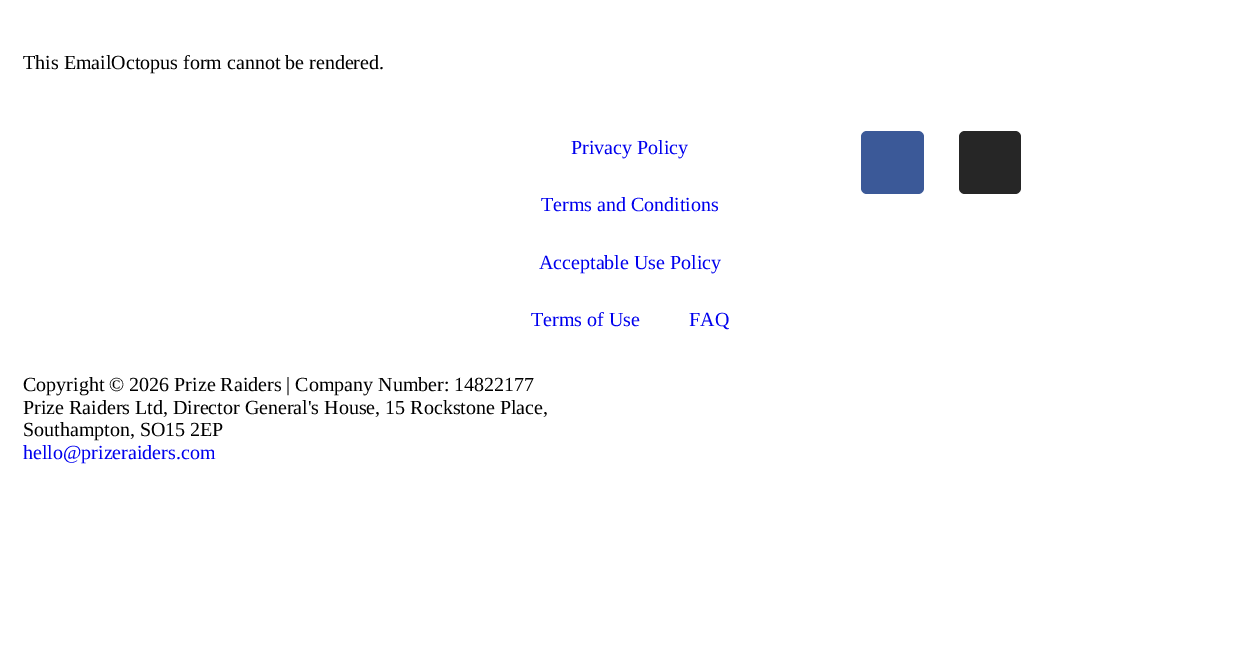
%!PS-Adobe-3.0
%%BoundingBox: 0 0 1260 651
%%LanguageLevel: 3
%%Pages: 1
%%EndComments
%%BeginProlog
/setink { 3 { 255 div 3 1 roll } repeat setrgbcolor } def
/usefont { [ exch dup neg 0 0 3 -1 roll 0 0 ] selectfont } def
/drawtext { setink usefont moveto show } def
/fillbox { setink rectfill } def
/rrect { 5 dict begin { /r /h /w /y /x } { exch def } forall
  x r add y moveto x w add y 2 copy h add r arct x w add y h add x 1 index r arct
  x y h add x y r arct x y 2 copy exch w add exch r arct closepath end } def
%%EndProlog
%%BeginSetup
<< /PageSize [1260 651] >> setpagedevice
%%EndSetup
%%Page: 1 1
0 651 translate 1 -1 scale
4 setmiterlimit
0 0 1260 651 255 255 255 fillbox
(This EmailOctopus form cannot be rendered.) 23 69 /LiberationSerif-Regular 20 0 0 0 drawtext
(Privacy Policy) 571 154 /LiberationSerif-Regular 20 0 0 238 drawtext
(Terms and Conditions) 541 211 /LiberationSerif-Regular 20 0 0 238 drawtext
(Acceptable Use Policy) 539 269 /LiberationSerif-Regular 20 0 0 238 drawtext
(Terms of Use) 531 326 /LiberationSerif-Regular 20 0 0 238 drawtext
(FAQ) 689 326 /LiberationSerif-Regular 20 0 0 238 drawtext
59 89 152 setink
861 131 63 63 6 rrect fill
38 38 38 setink
959 131 62 63 6 rrect fill
(Copyright © 2026 Prize Raiders | Company Number: 14822177) 23 391 /LiberationSerif-Regular 20 0 0 0 drawtext
(Prize Raiders Ltd, Director General's House, 15 Rockstone Place,) 23 414 /LiberationSerif-Regular 20 0 0 0 drawtext
(Southampton, SO15 2EP) 23 436 /LiberationSerif-Regular 20 0 0 0 drawtext
(hello@prizeraiders.com) 23 459 /LiberationSerif-Regular 20 0 0 238 drawtext
showpage
%%EOF
